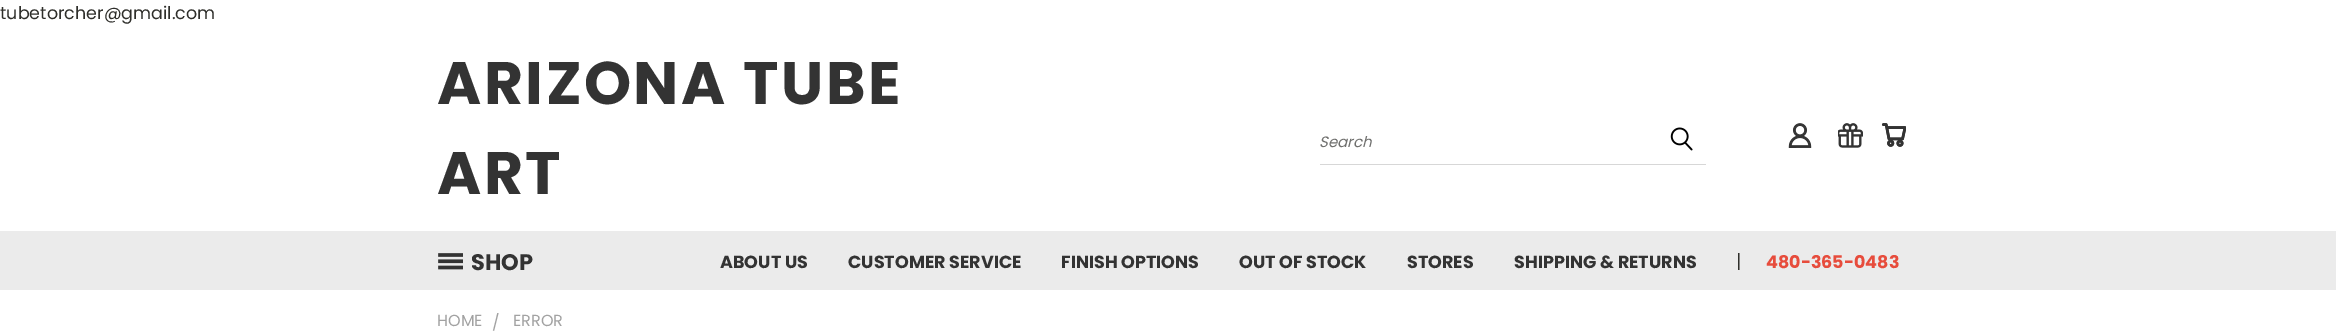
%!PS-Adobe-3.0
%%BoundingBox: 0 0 2336 334
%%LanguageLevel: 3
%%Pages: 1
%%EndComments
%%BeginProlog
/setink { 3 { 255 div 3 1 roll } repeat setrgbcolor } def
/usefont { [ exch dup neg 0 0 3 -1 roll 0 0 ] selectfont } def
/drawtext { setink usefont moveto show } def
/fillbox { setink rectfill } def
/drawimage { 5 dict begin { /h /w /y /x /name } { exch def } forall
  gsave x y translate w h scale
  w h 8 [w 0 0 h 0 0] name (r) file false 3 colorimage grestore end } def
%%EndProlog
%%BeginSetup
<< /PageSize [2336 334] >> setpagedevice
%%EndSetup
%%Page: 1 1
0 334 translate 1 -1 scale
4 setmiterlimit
0 0 2336 334 255 255 255 fillbox
(tubetorcher@gmail.com) 0 19 /Poppins-Regular 17.5 47 47 43 drawtext
/Poppins-Bold 60 usefont
51 51 51 setink
437 104 moveto 2.5 0 (ARIZONA TUBE) ashow
437 194 moveto 2.5 0 (ART) ashow
1320 164 386 1 215 215 215 fillbox
(Search) 1319 147 /Poppins-Italic 15 112 112 110 drawtext
(assets/img1.rgb) 1670 127 23 24 drawimage
(assets/img2.rgb) 1788 123 24 25 drawimage
(assets/img3.rgb) 1838 123 25 25 drawimage
(assets/img4.rgb) 1881 123 25 24 drawimage
0 231 2336 59 235 235 235 fillbox
(assets/img5.rgb) 438 253 25 17 drawimage
(SHOP) 471 270 /Poppins-Bold 22.5 51 51 51 drawtext
(ABOUT US) 720 268 /Poppins-Bold 17.5 51 51 51 drawtext
(CUSTOMER SERVICE) 848 268 /Poppins-Bold 17.5 51 51 51 drawtext
(FINISH OPTIONS) 1061 268 /Poppins-Bold 17.5 51 51 51 drawtext
(OUT OF STOCK) 1239 268 /Poppins-Bold 17.5 51 51 51 drawtext
(STORES) 1407 268 /Poppins-Bold 17.5 51 51 51 drawtext
(SHIPPING & RETURNS) 1514 268 /Poppins-Bold 17.5 51 51 51 drawtext
(|) 1736 268 /Poppins-Regular 19 47 47 43 drawtext
(480-365-0483) 1766 268 /Poppins-Bold 17.5 231 76 60 drawtext
(HOME) 437 326 /Poppins-Regular 16 162 162 162 drawtext
(/) 492 328 /Poppins-Regular 16 162 162 162 drawtext
(ERROR) 513 326 /Poppins-Regular 16 162 162 162 drawtext
showpage
%%EOF
